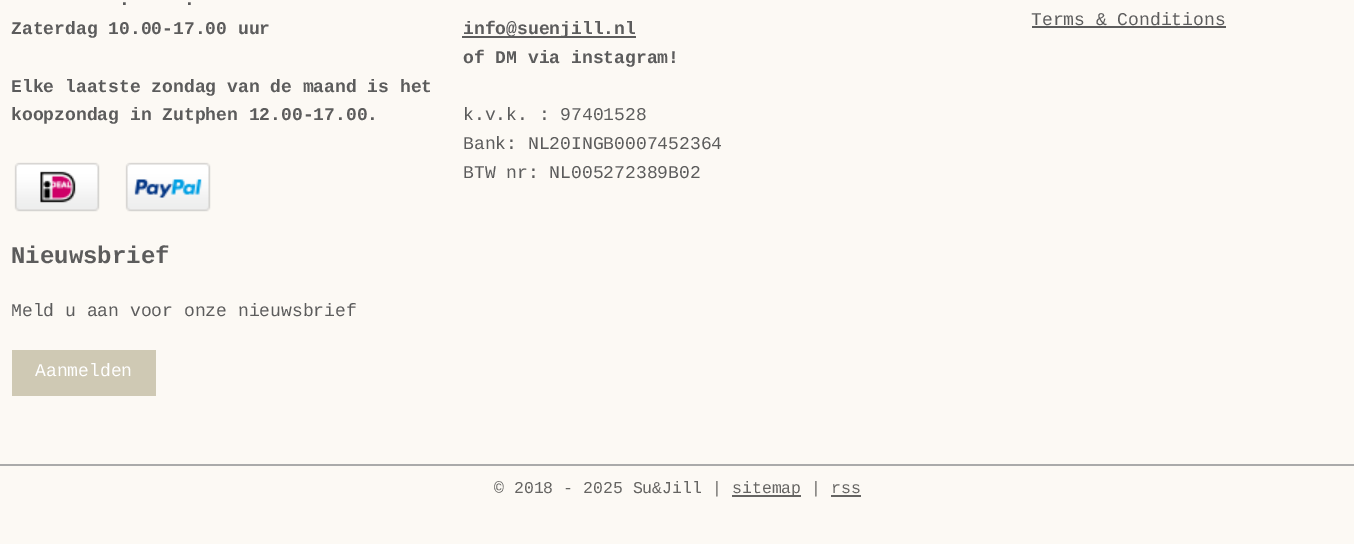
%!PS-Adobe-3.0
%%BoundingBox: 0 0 1354 544
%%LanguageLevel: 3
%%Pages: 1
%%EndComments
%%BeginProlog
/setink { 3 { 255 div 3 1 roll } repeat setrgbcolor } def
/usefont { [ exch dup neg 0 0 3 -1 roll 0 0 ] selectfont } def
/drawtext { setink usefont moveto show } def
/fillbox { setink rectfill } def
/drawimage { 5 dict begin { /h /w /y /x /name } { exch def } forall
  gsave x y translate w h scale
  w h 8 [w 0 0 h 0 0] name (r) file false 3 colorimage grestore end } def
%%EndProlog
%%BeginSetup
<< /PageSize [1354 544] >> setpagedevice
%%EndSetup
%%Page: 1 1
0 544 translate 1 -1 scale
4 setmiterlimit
0 0 1354 544 252 249 244 fillbox
(.) 119 5 /LiberationMono-Bold 18 92 92 92 drawtext
(.) 184 5 /LiberationMono-Bold 18 92 92 92 drawtext
(Zaterdag 10.00-17.00 uur) 11 34 /LiberationMono-Bold 18 92 92 92 drawtext
(Elke laatste zondag van de maand is het) 11 92 /LiberationMono-Bold 18 92 92 92 drawtext
(koopzondag in Zutphen 12.00-17.00.) 11 120 /LiberationMono-Bold 18 92 92 92 drawtext
(assets/img1.rgb) 14 162 86 50 drawimage
(assets/img2.rgb) 125 162 86 50 drawimage
(Terms & Conditions) 1031 25 /LiberationMono-Regular 18 92 92 92 drawtext
1032 26 194 2 92 92 92 fillbox
462 36 174 2 92 92 92 fillbox
(info@suenjill.nl) 463 34 /LiberationMono-Bold 18 92 92 92 drawtext
(of DM via instagram!) 463 63 /LiberationMono-Bold 18 92 92 92 drawtext
(k.v.k. : 97401528) 463 120 /LiberationMono-Regular 18 92 92 92 drawtext
(Bank: NL20INGB0007452364) 463 149 /LiberationMono-Regular 18 92 92 92 drawtext
(BTW nr: NL005272389B02) 463 178 /LiberationMono-Regular 18 92 92 92 drawtext
(Nieuwsbrief) 11 263 /LiberationMono-Bold 24 92 92 92 drawtext
(Meld u aan voor onze nieuwsbrief) 11 316 /LiberationMono-Regular 18 92 92 92 drawtext
12 350 144 46 207 201 180 fillbox
(Aanmelden) 35 376 /LiberationMono-Regular 18 255 255 255 drawtext
0 464 1354 2 170 170 170 fillbox
(© 2018 - 2025 Su&Jill |) 494 493 /LiberationMono-Regular 16.5 101 100 98 drawtext
732 495 69 2 101 100 98 fillbox
(sitemap) 732 493 /LiberationMono-Regular 16.5 101 100 98 drawtext
(| rss) 811 493 /LiberationMono-Regular 16.5 101 100 98 drawtext
831 495 30 2 101 100 98 fillbox
showpage
%%EOF
